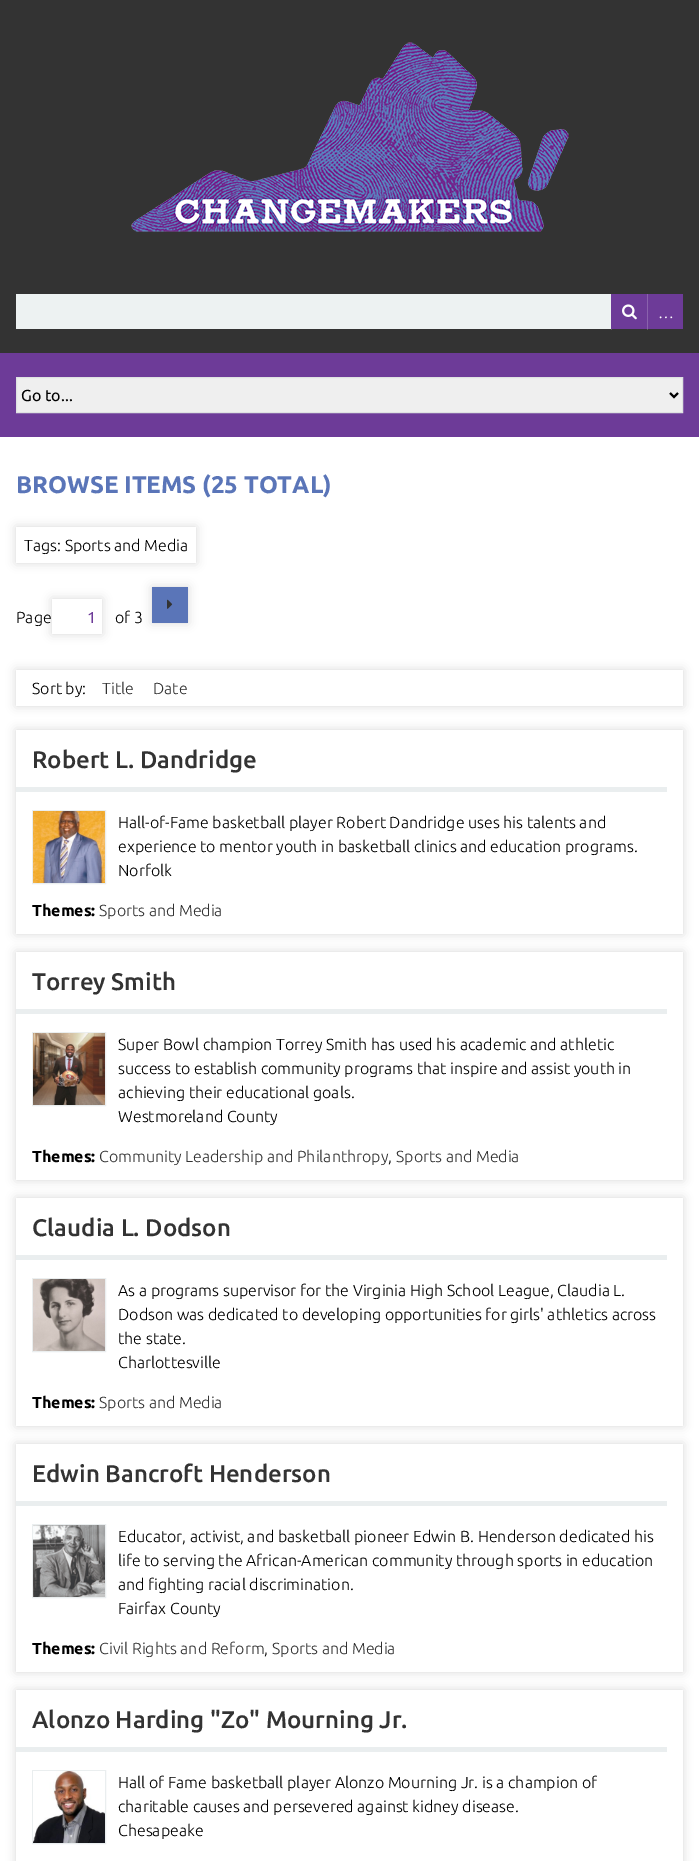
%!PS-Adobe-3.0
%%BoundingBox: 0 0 699 1861
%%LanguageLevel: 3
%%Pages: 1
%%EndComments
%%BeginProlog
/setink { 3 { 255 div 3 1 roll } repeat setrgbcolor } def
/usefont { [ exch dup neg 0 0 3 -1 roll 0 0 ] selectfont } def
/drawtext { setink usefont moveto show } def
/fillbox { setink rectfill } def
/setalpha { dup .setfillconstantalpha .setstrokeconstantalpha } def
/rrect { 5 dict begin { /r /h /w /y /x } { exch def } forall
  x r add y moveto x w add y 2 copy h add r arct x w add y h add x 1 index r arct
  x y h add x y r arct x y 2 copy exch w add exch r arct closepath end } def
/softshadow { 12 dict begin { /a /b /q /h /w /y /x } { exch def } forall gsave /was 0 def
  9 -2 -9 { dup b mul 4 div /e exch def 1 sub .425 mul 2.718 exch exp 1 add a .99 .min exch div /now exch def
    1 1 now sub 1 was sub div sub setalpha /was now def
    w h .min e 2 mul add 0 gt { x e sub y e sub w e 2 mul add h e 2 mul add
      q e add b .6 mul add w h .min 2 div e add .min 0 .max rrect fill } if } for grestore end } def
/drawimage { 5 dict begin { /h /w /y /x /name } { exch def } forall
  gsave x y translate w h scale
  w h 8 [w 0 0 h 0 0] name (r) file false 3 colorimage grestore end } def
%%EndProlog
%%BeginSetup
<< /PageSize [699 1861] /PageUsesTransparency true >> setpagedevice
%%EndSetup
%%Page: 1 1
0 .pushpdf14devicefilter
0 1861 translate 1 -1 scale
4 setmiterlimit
0 0 699 1861 51 51 51 fillbox
611 329 1 1 92 92 92 fillbox
647 329 1 1 92 92 92 fillbox
(assets/img1.rgb) 131 42 438 190 drawimage
16 294 595 35 237 242 242 fillbox
611 294 36 35 109 59 152 fillbox
(assets/img2.rgb) 622 304 15 16 drawimage
648 294 35 35 109 59 152 fillbox
647 294 1 35 138 98 173 fillbox
(…) 658 318 /Ubuntu-Light 16 255 255 255 drawtext
0 353 699 84 109 59 152 fillbox
239 239 239 setink
16.5 377.5 moveto 682.5 377.5 lineto 682.5 412.5 lineto 16.5 412.5 lineto closepath gsave fill grestore
223 226 226 setink
stroke
0 0 0 setink
2 setlinewidth
670 393 moveto 674 397 lineto 678 393 lineto stroke
(Go to...) 21 401 /Ubuntu-Regular 16 0 0 0 drawtext
0 437 699 1424 255 255 255 fillbox
(BROWSE ITEMS \(25 TOTAL\)) 16 493 /Ubuntu-Bold 24 90 117 184 drawtext
gsave
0 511 moveto 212 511 lineto 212 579 lineto 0 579 lineto closepath 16 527 moveto 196 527 lineto 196 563 lineto 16 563 lineto closepath eoclip newpath
0 0 0 setink
16 527 180 36 0 5 0.15 softshadow
grestore
(Tags: Sports and Media) 24 551 /Ubuntu-Light 16 0 0 0 drawtext
(Page) 16 623 /Ubuntu-Light 16 0 0 0 drawtext
gsave
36 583 moveto 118 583 lineto 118 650 lineto 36 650 lineto closepath 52 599 moveto 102 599 lineto 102 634 lineto 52 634 lineto closepath eoclip newpath
52 599 50 35 0 5 0.15 softshadow
grestore
(1) 87 623 /Ubuntu-Regular 16 109 59 152 drawtext
(of 3) 115 623 /Ubuntu-Light 16 0 0 0 drawtext
152 587 36 36 0 5 0.15 softshadow
152 587 36 36 90 117 184 fillbox
(assets/img3.rgb) 167 599 6 10 drawimage
gsave
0 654 moveto 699 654 lineto 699 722 lineto 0 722 lineto closepath 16 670 moveto 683 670 lineto 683 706 lineto 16 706 lineto closepath eoclip newpath
0 0 0 setink
16 670 667 36 0 5 0.15 softshadow
grestore
(Sort by:) 32 694 /Ubuntu-Light 16 0 0 0 drawtext
(Title) 102 694 /Ubuntu-Light 16 51 51 51 drawtext
(Date) 153 694 /Ubuntu-Light 16 51 51 51 drawtext
gsave
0 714 moveto 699 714 lineto 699 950 lineto 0 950 lineto closepath 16 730 moveto 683 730 lineto 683 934 lineto 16 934 lineto closepath eoclip newpath
0 0 0 setink
16 730 667 204 0 5 0.15 softshadow
grestore
16 787 651 5 234 238 239 fillbox
(Robert L. Dandridge) 32 768 /Ubuntu-Medium 24 51 51 51 drawtext
234 238 239 setink
1 setlinewidth
32.5 810.5 73 73 rectstroke
(assets/img4.rgb) 33 811 72 72 drawimage
(Hall-of-Fame basketball player Robert Dandridge uses his talents and) 118 828 /Ubuntu-Light 16 0 0 0 drawtext
(experience to mentor youth in basketball clinics and education programs.) 118 852 /Ubuntu-Light 16 0 0 0 drawtext
(Norfolk) 118 876 /Ubuntu-Light 16 0 0 0 drawtext
(Themes:) 32 916 /Ubuntu-Bold 16 0 0 0 drawtext
(Sports and Media) 99 916 /Ubuntu-Light 16 51 51 51 drawtext
gsave
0 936 moveto 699 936 lineto 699 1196 lineto 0 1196 lineto closepath 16 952 moveto 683 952 lineto 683 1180 lineto 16 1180 lineto closepath eoclip newpath
0 0 0 setink
16 952 667 228 0 5 0.15 softshadow
grestore
16 1009 651 5 234 238 239 fillbox
(Torrey Smith) 32 990 /Ubuntu-Medium 24 51 51 51 drawtext
234 238 239 setink
32.5 1032.5 73 73 rectstroke
(assets/img5.rgb) 33 1033 72 72 drawimage
(Super Bowl champion Torrey Smith has used his academic and athletic) 118 1050 /Ubuntu-Light 16 0 0 0 drawtext
(success to establish community programs that inspire and assist youth in) 118 1074 /Ubuntu-Light 16 0 0 0 drawtext
(achieving their educational goals.) 118 1098 /Ubuntu-Light 16 0 0 0 drawtext
(Westmoreland County) 118 1122 /Ubuntu-Light 16 0 0 0 drawtext
(Themes:) 32 1162 /Ubuntu-Bold 16 0 0 0 drawtext
(Community Leadership and Philanthropy) 99 1162 /Ubuntu-Light 16 51 51 51 drawtext
(,) 388 1162 /Ubuntu-Light 16 0 0 0 drawtext
(Sports and Media) 396 1162 /Ubuntu-Light 16 51 51 51 drawtext
gsave
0 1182 moveto 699 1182 lineto 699 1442 lineto 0 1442 lineto closepath 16 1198 moveto 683 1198 lineto 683 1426 lineto 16 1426 lineto closepath eoclip newpath
0 0 0 setink
16 1198 667 228 0 5 0.15 softshadow
grestore
16 1255 651 5 234 238 239 fillbox
(Claudia L. Dodson) 32 1236 /Ubuntu-Medium 24 51 51 51 drawtext
234 238 239 setink
32.5 1278.5 73 73 rectstroke
(assets/img6.rgb) 33 1279 72 72 drawimage
(As a programs supervisor for the Virginia High School League, Claudia L.) 118 1296 /Ubuntu-Light 16 0 0 0 drawtext
(Dodson was dedicated to developing opportunities for girls' athletics across) 118 1320 /Ubuntu-Light 16 0 0 0 drawtext
(the state.) 118 1344 /Ubuntu-Light 16 0 0 0 drawtext
(Charlottesville) 118 1368 /Ubuntu-Light 16 0 0 0 drawtext
(Themes:) 32 1408 /Ubuntu-Bold 16 0 0 0 drawtext
(Sports and Media) 99 1408 /Ubuntu-Light 16 51 51 51 drawtext
gsave
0 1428 moveto 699 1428 lineto 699 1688 lineto 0 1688 lineto closepath 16 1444 moveto 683 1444 lineto 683 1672 lineto 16 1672 lineto closepath eoclip newpath
0 0 0 setink
16 1444 667 228 0 5 0.15 softshadow
grestore
16 1501 651 5 234 238 239 fillbox
(Edwin Bancroft Henderson) 32 1482 /Ubuntu-Medium 24 51 51 51 drawtext
234 238 239 setink
32.5 1524.5 73 73 rectstroke
(assets/img7.rgb) 33 1525 72 72 drawimage
(Educator, activist, and basketball pioneer Edwin B. Henderson dedicated his) 118 1542 /Ubuntu-Light 16 0 0 0 drawtext
(life to serving the African-American community through sports in education) 118 1566 /Ubuntu-Light 16 0 0 0 drawtext
(and fighting racial discrimination.) 118 1590 /Ubuntu-Light 16 0 0 0 drawtext
(Fairfax County) 118 1614 /Ubuntu-Light 16 0 0 0 drawtext
(Themes:) 32 1654 /Ubuntu-Bold 16 0 0 0 drawtext
(Civil Rights and Reform) 99 1654 /Ubuntu-Light 16 51 51 51 drawtext
(,) 264 1654 /Ubuntu-Light 16 0 0 0 drawtext
(Sports and Media) 272 1654 /Ubuntu-Light 16 51 51 51 drawtext
gsave
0 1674 moveto 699 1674 lineto 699 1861 lineto 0 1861 lineto closepath 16 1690 moveto 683 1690 lineto 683 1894 lineto 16 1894 lineto closepath eoclip newpath
0 0 0 setink
16 1690 667 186 0 5 0.15 softshadow
grestore
16 1747 651 5 234 238 239 fillbox
(Alonzo Harding "Zo" Mourning Jr.) 32 1728 /Ubuntu-Medium 24 51 51 51 drawtext
234 238 239 setink
32.5 1770.5 73 73 rectstroke
(assets/img8.rgb) 33 1771 72 72 drawimage
(Hall of Fame basketball player Alonzo Mourning Jr. is a champion of) 118 1788 /Ubuntu-Light 16 0 0 0 drawtext
(charitable causes and persevered against kidney disease.) 118 1812 /Ubuntu-Light 16 0 0 0 drawtext
(Chesapeake) 118 1836 /Ubuntu-Light 16 0 0 0 drawtext
.poppdf14devicefilter showpage
%%EOF
